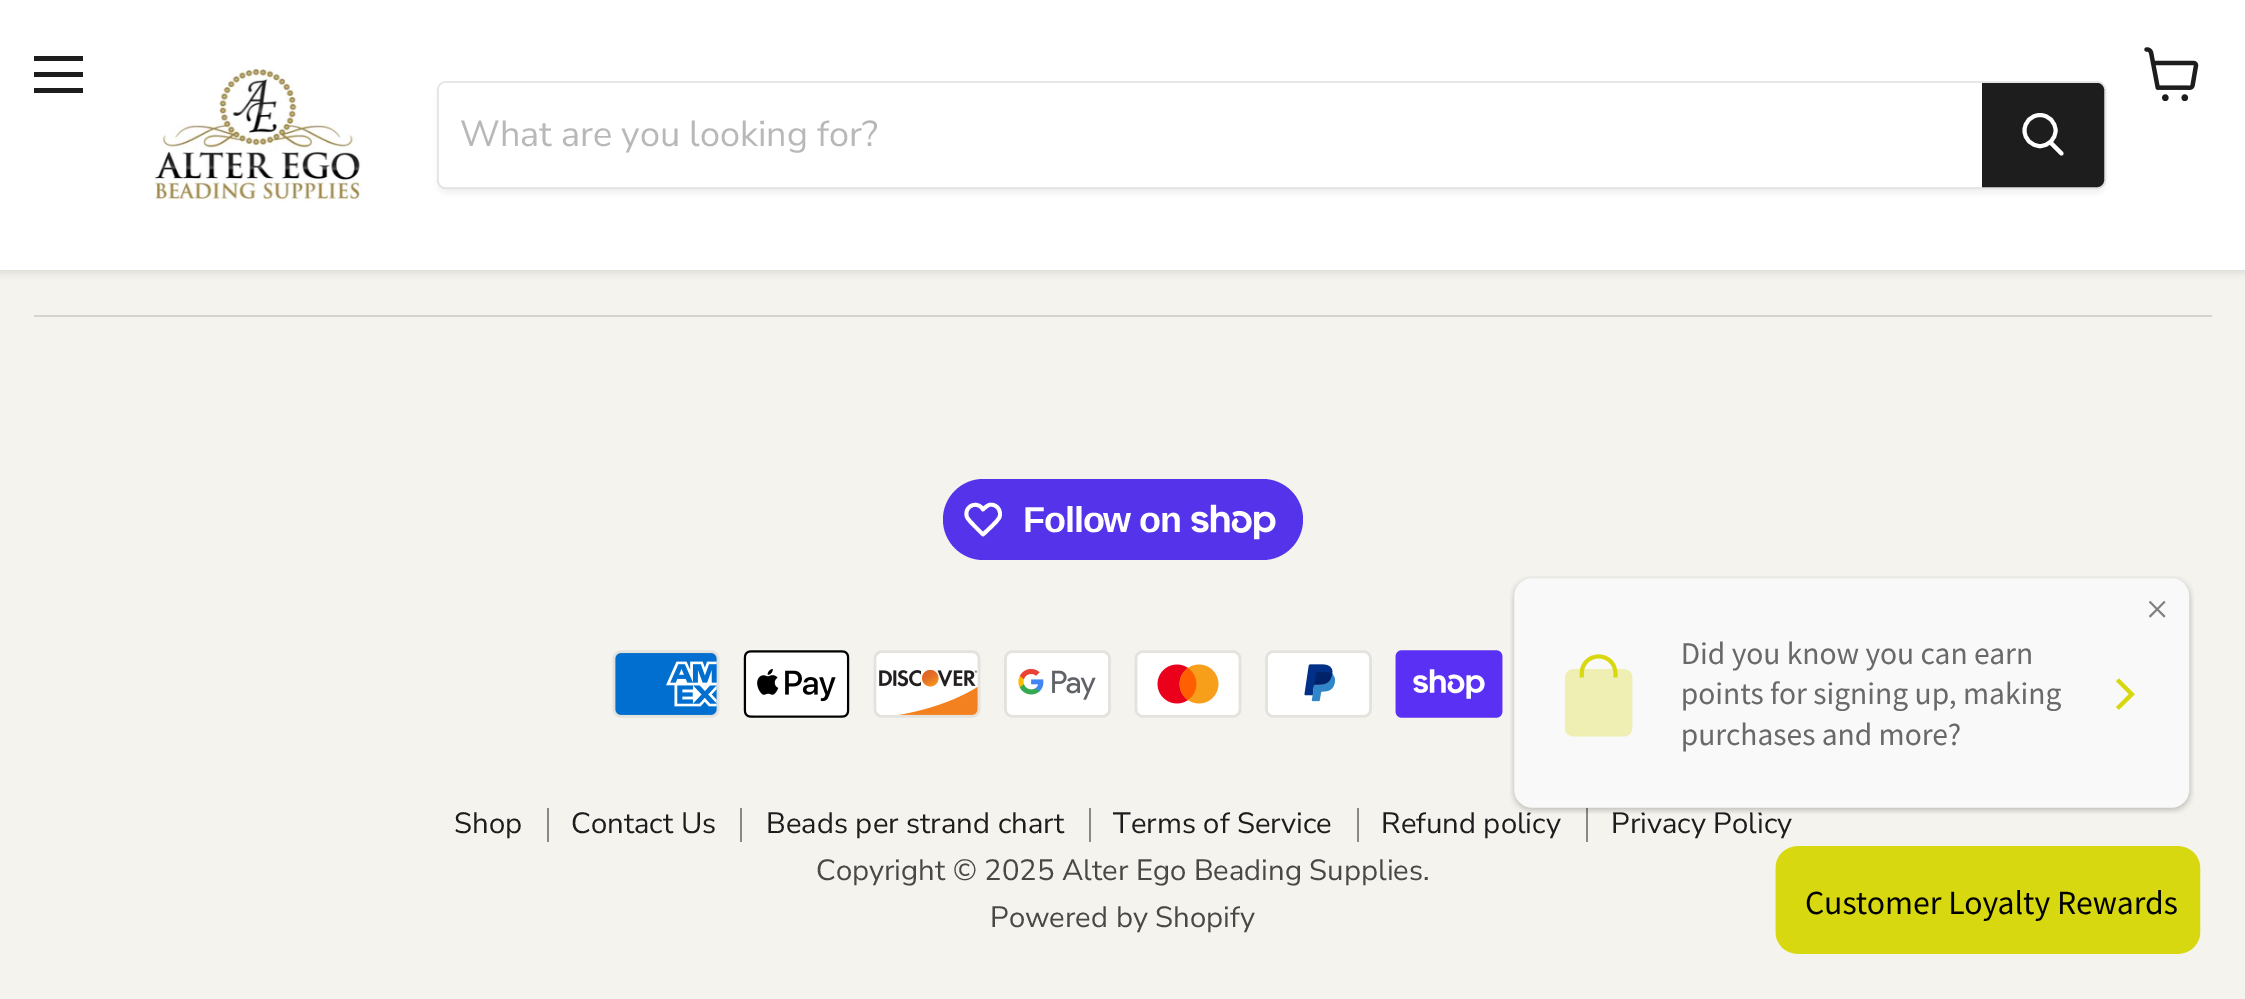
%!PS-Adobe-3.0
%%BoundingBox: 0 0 2245 999
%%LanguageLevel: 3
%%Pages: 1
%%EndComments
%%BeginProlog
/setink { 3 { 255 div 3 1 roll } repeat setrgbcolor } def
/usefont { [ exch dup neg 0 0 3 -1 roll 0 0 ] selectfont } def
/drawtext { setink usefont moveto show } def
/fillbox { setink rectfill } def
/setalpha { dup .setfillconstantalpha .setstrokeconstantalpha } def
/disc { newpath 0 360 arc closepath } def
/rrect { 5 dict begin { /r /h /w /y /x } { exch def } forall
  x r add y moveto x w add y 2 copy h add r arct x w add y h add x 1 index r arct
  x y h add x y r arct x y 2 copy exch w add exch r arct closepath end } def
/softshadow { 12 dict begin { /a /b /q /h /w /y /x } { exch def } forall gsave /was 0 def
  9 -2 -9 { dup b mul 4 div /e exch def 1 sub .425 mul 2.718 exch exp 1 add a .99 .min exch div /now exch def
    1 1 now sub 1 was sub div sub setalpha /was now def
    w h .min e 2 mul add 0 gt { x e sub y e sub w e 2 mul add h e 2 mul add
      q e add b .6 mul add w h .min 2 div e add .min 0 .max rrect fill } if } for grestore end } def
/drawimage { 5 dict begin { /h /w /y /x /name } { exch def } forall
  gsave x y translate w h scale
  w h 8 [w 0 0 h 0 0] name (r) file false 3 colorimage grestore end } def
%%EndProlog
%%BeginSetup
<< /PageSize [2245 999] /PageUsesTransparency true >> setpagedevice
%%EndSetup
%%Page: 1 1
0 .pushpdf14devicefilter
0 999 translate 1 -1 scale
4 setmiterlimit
0 0 2245 999 245 243 237 fillbox
128 128 128 setink
0 2 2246 270 0 4.5 0.25 softshadow
0 0 2245 270 255 255 255 fillbox
34 56 49 5 29 29 29 fillbox
34 72 49 5 29 29 29 fillbox
34 88 49 5 29 29 29 fillbox
(assets/img1.rgb) 2144 47 55 54 drawimage
(assets/img2.rgb) 154 68 209 134 drawimage
gsave
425 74 moveto 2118 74 lineto 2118 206 lineto 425 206 lineto closepath 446 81 moveto 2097 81 lineto 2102 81 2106 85 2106 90 curveto 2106 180 lineto 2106 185 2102 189 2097 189 curveto 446 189 lineto 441 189 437 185 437 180 curveto 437 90 lineto 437 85 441 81 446 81 curveto closepath eoclip newpath
128 128 128 setink
437 86 1669 108 9 3.5 0.11 softshadow
grestore
0.2 setalpha
128 128 128 setink
2 setlinewidth
438 82 1667 106 8 rrect stroke
1 setalpha
255 255 255 setink
446 83 moveto 1982 83 lineto 1982 187 lineto 446 187 lineto 442 187 439 184 439 180 curveto 439 90 lineto 439 86 442 83 446 83 curveto closepath fill
(What are you looking for?) 460 146 /NunitoSans-Regular 36 184 184 184 drawtext
29 29 29 setink
1983 84 moveto 2097 84 lineto 2100.5 84 2103 86.5 2103 90 curveto 2103 180 lineto 2103 183.5 2100.5 186 2097 186 curveto 1983 186 lineto closepath gsave fill grestore
stroke
255 255 255 setink
3.9 setlinewidth
1 setlinecap
2061.5 153.5 moveto 2051 143 lineto stroke
0 setlinecap
2040 130.5 15.5 disc stroke
34 315 2178 2 213 211 206 fillbox
84 51 235 setink
943 479 360 81 40.5 rrect fill
255 255 255 setink
3.8 setlinewidth
1 setlinejoin
981.5 507.5 moveto 983 509.5 lineto 985 507.5 986.5 506 989 505 curveto 995.5 503 1002 510 999.5 517 curveto 998.5 520 995 522.5 993 525 curveto 983 534.5 lineto 973.5 525 lineto 971.5 522.5 968.5 520.5 967 517 curveto 963.5 508 974.5 500.5 981.5 507.5 curveto closepath stroke
/LiberationSans-Bold 36 usefont
1023 532 moveto -1.1 0 (Follow on) ashow
(assets/img3.rgb) 1191 504 85 36 drawimage
(assets/img4.rgb) 612 650 108 68 drawimage
(assets/img5.rgb) 743 650 107 68 drawimage
(assets/img6.rgb) 873 650 108 68 drawimage
(assets/img7.rgb) 1004 650 107 68 drawimage
(assets/img8.rgb) 1134 650 108 68 drawimage
(assets/img9.rgb) 1265 650 107 68 drawimage
(assets/img10.rgb) 1395 650 108 68 drawimage
547 808 2 34 137 136 133 fillbox
(Shop) 454 833 /NunitoSans-Regular 29.25 29 29 29 drawtext
740 808 2 34 137 136 133 fillbox
(Contact Us) 571 833 /NunitoSans-Regular 29.25 29 29 29 drawtext
1089 808 2 34 137 136 133 fillbox
(Beads per strand chart) 766 833 /NunitoSans-Regular 29.25 29 29 29 drawtext
1357 808 2 34 137 136 133 fillbox
(Terms of Service) 1113 833 /NunitoSans-Regular 29.25 29 29 29 drawtext
1586 808 2 34 137 136 133 fillbox
(Refund policy) 1381 833 /NunitoSans-Regular 29.25 29 29 29 drawtext
(Privacy Policy) 1611 833 /NunitoSans-Regular 29.25 29 29 29 drawtext
(Copyright © 2025 Alter Ego Beading Supplies.) 816 880 /NunitoSans-Regular 29.25 72 72 71 drawtext
(Powered by Shopify) 990 927 /NunitoSans-Regular 29.25 72 72 71 drawtext
(assets/img11.rgb) 1510 576 684 238 drawimage
(assets/img12.rgb) 1775 846 426 108 drawimage
.poppdf14devicefilter showpage
%%EOF
